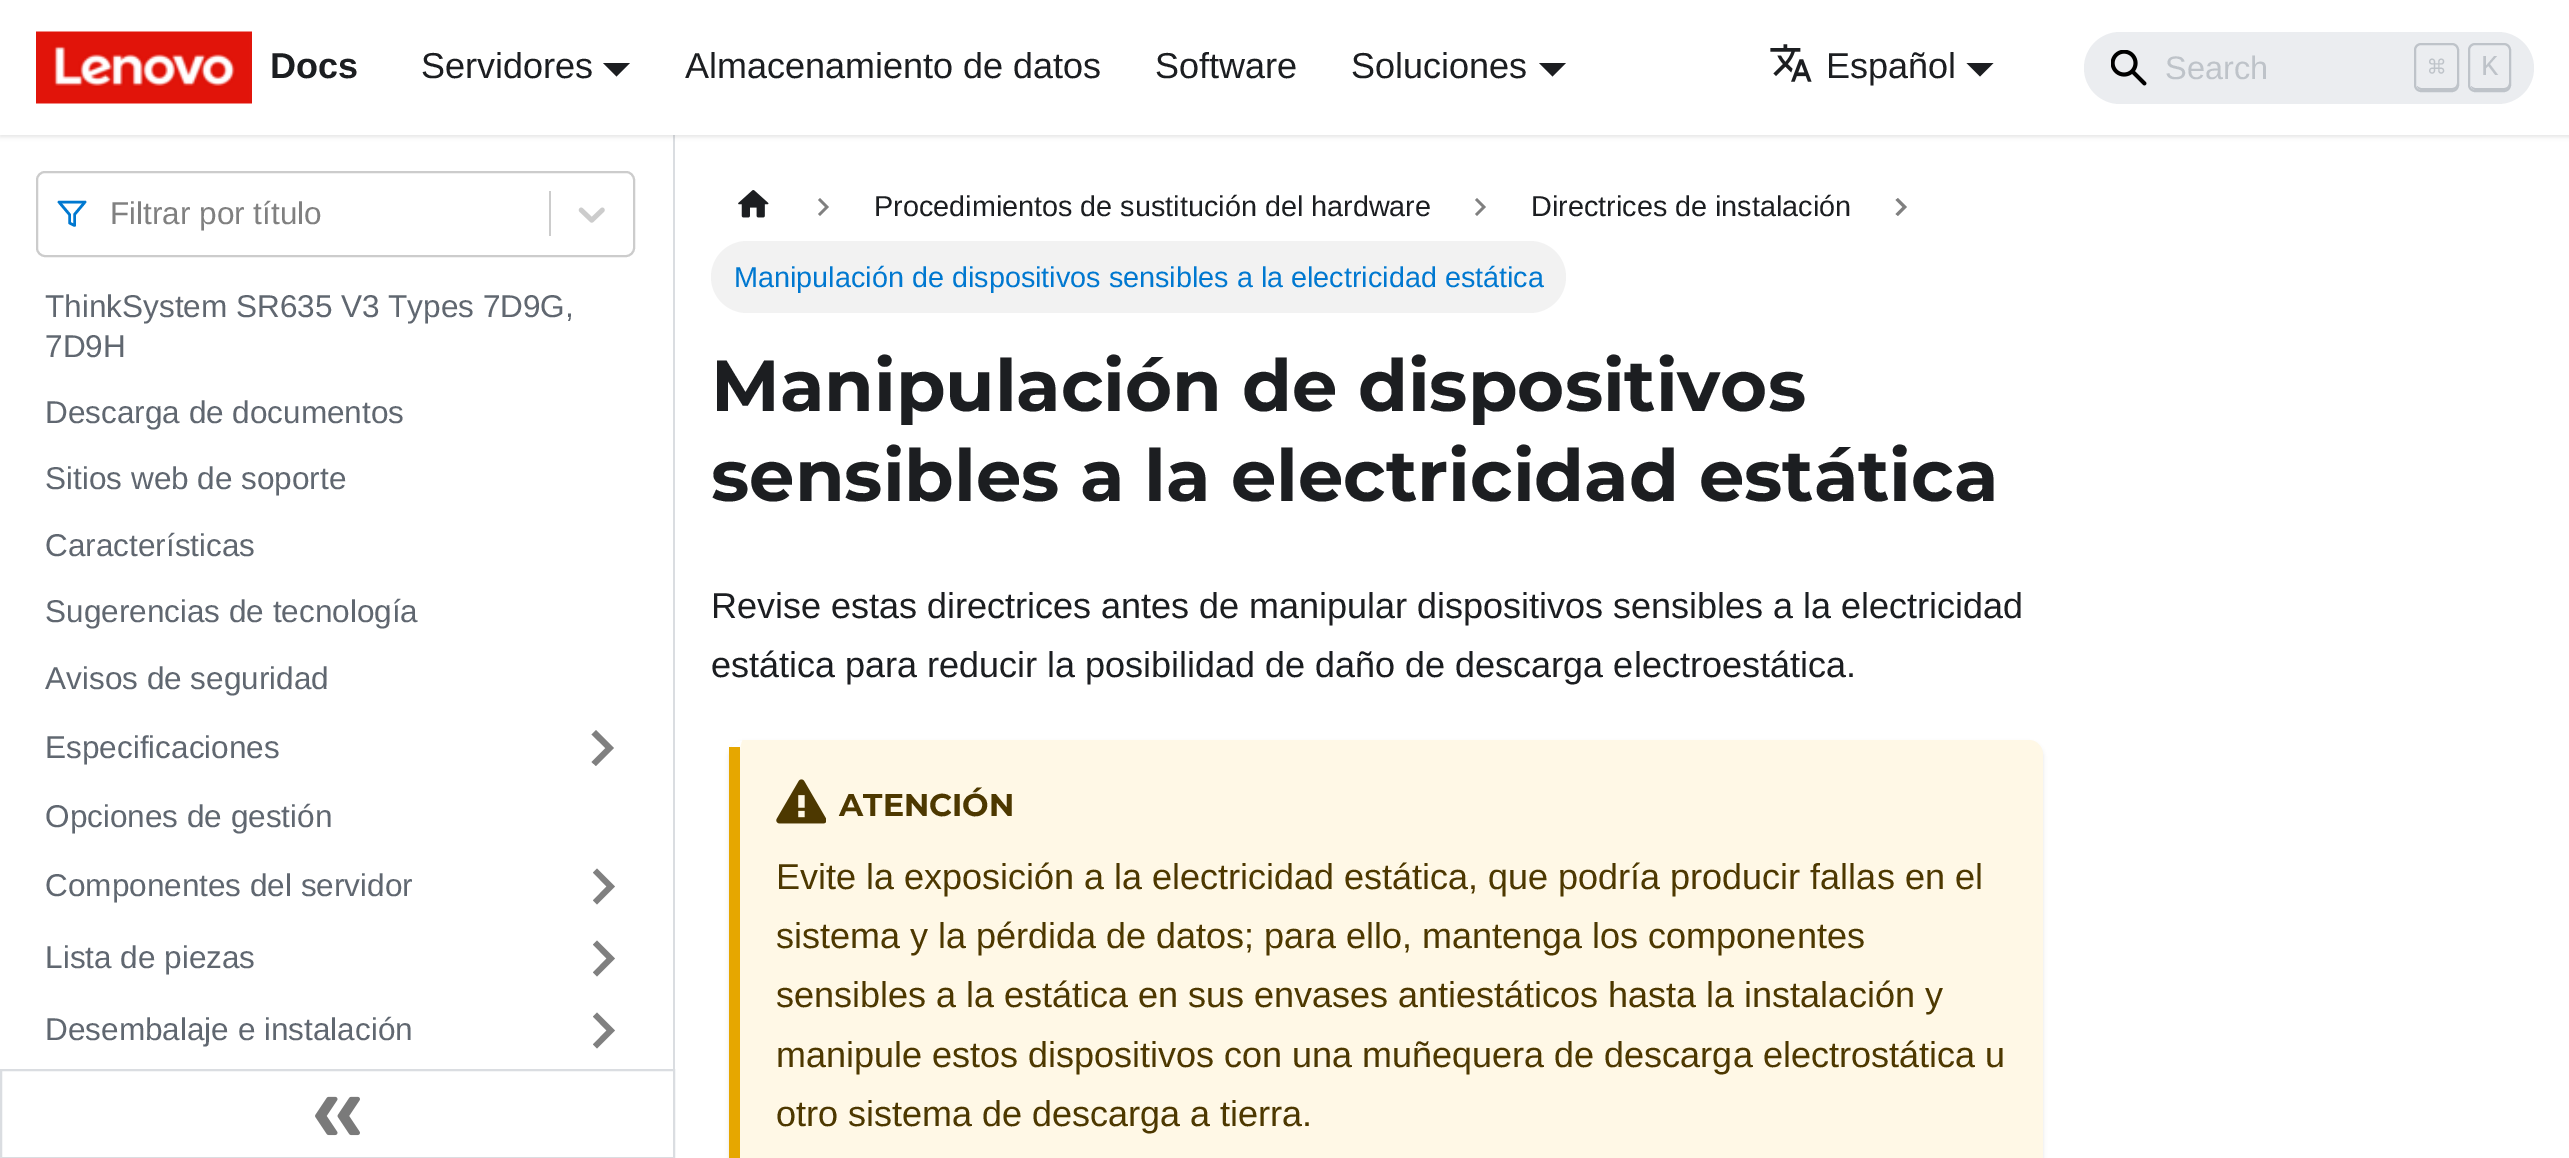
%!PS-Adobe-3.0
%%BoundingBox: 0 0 2569 1158
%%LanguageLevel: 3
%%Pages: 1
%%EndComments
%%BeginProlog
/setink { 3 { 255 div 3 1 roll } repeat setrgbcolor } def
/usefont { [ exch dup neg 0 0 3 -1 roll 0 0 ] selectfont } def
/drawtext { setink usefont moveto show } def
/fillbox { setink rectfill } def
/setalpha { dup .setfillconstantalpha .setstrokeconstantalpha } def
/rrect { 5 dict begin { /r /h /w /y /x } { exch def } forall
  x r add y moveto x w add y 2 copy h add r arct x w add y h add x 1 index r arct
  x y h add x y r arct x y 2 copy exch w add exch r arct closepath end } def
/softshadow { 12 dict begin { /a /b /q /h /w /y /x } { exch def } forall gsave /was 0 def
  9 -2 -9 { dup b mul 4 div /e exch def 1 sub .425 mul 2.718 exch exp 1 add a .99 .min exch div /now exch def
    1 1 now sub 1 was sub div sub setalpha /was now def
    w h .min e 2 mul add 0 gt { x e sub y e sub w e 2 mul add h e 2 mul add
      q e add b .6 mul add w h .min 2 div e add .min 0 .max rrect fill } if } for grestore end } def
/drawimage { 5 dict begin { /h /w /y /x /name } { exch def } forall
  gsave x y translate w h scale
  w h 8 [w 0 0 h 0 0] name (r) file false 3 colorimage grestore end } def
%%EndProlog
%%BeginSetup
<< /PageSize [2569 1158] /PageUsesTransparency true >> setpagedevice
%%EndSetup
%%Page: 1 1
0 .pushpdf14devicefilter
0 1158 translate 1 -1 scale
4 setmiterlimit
0 0 2569 1158 255 255 255 fillbox
673 135 2 934 218 221 225 fillbox
0 0 0 setink
0 2 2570 135 0 2 0.1 softshadow
0 0 2569 135 255 255 255 fillbox
(assets/img1.rgb) 36 31 216 73 drawimage
(Docs) 270 78 /LiberationSans-Bold 36 28 30 33 drawtext
(Servidores) 421 78 /LiberationSans-Regular 36 28 30 33 drawtext
603 63 moveto 630 63 lineto 616.5 76.5 lineto closepath fill
(Almacenamiento de datos) 685 78 /LiberationSans-Regular 36 28 30 33 drawtext
(Software) 1155 78 /LiberationSans-Regular 36 28 30 33 drawtext
(Soluciones) 1351 78 /LiberationSans-Regular 36 28 30 33 drawtext
1539 63 moveto 1566 63 lineto 1552.5 76.5 lineto closepath fill
(assets/img2.rgb) 1770 44 42 38 drawimage
(Español) 1826 78 /LiberationSans-Regular 36 28 30 33 drawtext
1966.5 63 moveto 1993.5 63 lineto 1980 76.5 lineto closepath fill
235 237 240 setink
2084 32 450 72 36 rrect fill
(assets/img3.rgb) 2111 50 36 36 drawimage
(Search) 2165 79 /LiberationSans-Regular 32.5 190 195 201 drawtext
2417 86 moveto 2417.5 88.5 2419.5 90 2422 90 curveto 2452 90 lineto 2455 90 2457 88 2457 85 curveto 2457 83 lineto 2457 86 2455 88 2452 88 curveto 2421 88 lineto 2420 88 2418 87 2417 86 curveto closepath fill
2 setlinewidth
2415 44 43 47 6 rrect stroke
(⌘) 2428 77 /DejaVuSansMono-Regular 28.8 190 195 201 drawtext
2471 86 moveto 2471.5 88.5 2473.5 90 2476 90 curveto 2504 90 lineto 2507 90 2509 88 2509 85 curveto 2509 83 lineto 2509 86 2507 88 2504 88 curveto 2475 88 lineto 2474 88 2472 87 2471 86 curveto closepath fill
2469 44 41 47 6 rrect stroke
(K) 2481 75 /LiberationMono-Regular 28.8 190 195 201 drawtext
204 204 204 setink
37 172 597 84 8 rrect stroke
0 120 208 setink
2.6 setlinewidth
1 setlinecap
1 setlinejoin
85 202 moveto 59 202 lineto 69.5 214.5 lineto 69.5 223 lineto 74.5 225.5 lineto 74.5 214.5 lineto closepath stroke
(Filtrar por título) 110 224 /LiberationSans-Regular 31.5 128 128 128 drawtext
549 191 2 45 204 204 204 fillbox
(assets/img4.rgb) 578 207 27 16 drawimage
(ThinkSystem SR635 V3 Types 7D9G,) 45 317 /LiberationSans-Regular 31.5 96 103 112 drawtext
(7D9H) 45 357 /LiberationSans-Regular 31.5 96 103 112 drawtext
(Descarga de documentos) 45 423 /LiberationSans-Regular 31.5 96 103 112 drawtext
(Sitios web de soporte) 45 489 /LiberationSans-Regular 31.5 96 103 112 drawtext
(Características) 45 556 /LiberationSans-Regular 31.5 96 103 112 drawtext
(Sugerencias de tecnología) 45 622 /LiberationSans-Regular 31.5 96 103 112 drawtext
(Avisos de seguridad) 45 689 /LiberationSans-Regular 31.5 96 103 112 drawtext
(Especificaciones) 45 758 /LiberationSans-Regular 31.5 96 103 112 drawtext
128 128 128 setink
591.5 734.5 moveto 605.5 748 lineto 591.5 762 lineto 596 766 lineto 614 748 lineto 596 730 lineto closepath fill
(Opciones de gestión) 45 827 /LiberationSans-Regular 31.5 96 103 112 drawtext
(Componentes del servidor) 45 896 /LiberationSans-Regular 31.5 96 103 112 drawtext
128 128 128 setink
593 872.5 moveto 606.5 886.5 lineto 593 900.5 lineto 597 904.5 lineto 615 886.5 lineto 597 868.5 lineto closepath fill
(Lista de piezas) 45 968 /LiberationSans-Regular 31.5 96 103 112 drawtext
128 128 128 setink
593 944.5 moveto 606.5 958.5 lineto 593 972.5 lineto 597 976.5 lineto 615 958.5 lineto 597 940.5 lineto closepath fill
(Desembalaje e instalación) 45 1040 /LiberationSans-Regular 31.5 96 103 112 drawtext
128 128 128 setink
593 1016.5 moveto 606.5 1030.5 lineto 593 1044.5 lineto 597 1048.5 lineto 615 1030.5 lineto 597 1012.5 lineto closepath fill
218 221 225 setink
2 setlinewidth
0 setlinecap
0 setlinejoin
1 1070 673 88 rectstroke
(assets/img5.rgb) 315 1096 45 40 drawimage
(assets/img6.rgb) 738 190 31 28 drawimage
128 128 128 setink
820 198 moveto 818 200 lineto 825 207 lineto 818 214 lineto 820 216 lineto 829 207 lineto closepath fill
(Procedimientos de sustitución del hardware) 874 216 /LiberationSans-Regular 28.8 28 30 33 drawtext
128 128 128 setink
1477 198 moveto 1475 200 lineto 1482 207 lineto 1475 214 lineto 1477 216 lineto 1486 207 lineto closepath fill
(Directrices de instalación) 1531 216 /LiberationSans-Regular 28.8 28 30 33 drawtext
128 128 128 setink
1898 198 moveto 1895.5 200 lineto 1902.5 207 lineto 1895.5 214 lineto 1898 216 lineto 1907 207 lineto closepath fill
242 242 242 setink
711 241 855 72 36 rrect fill
(Manipulación de dispositivos sensibles a la electricidad estática) 734 287 /LiberationSans-Regular 28.8 0 120 208 drawtext
(Manipulación de dispositivos) 711 411 /Montserrat-Bold 72 28 30 33 drawtext
(sensibles a la electricidad estática) 711 501 /Montserrat-Bold 72 28 30 33 drawtext
(Revise estas directrices antes de manipular dispositivos sensibles a la electricidad) 711 618 /LiberationSans-Regular 36 28 30 33 drawtext
(estática para reducir la posibilidad de daño de descarga electroestática.) 711 677 /LiberationSans-Regular 36 28 30 33 drawtext
gsave
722 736 moveto 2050 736 lineto 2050 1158 lineto 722 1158 lineto closepath 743 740 moveto 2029 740 lineto 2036.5 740 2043 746.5 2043 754 curveto 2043 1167 lineto 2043 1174.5 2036.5 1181 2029 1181 curveto 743 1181 lineto 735.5 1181 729 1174.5 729 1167 curveto 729 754 lineto 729 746.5 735.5 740 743 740 curveto closepath eoclip newpath
0 0 0 setink
729 743 1314 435 14 2 0.1 softshadow
grestore
255 248 230 setink
743 740 moveto 2029 740 lineto 2037 740 2043 747 2043 755 curveto 2043 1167 lineto 2043 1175 2037 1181 2029 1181 curveto 743 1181 lineto 742 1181 740 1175 740 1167 curveto 740 755 lineto 740 747 742 740 743 740 curveto closepath fill
729 747 11 411 230 167 0 fillbox
(assets/img7.rgb) 776 779 50 45 drawimage
(ATENCIÓN) 839 816 /Montserrat-Bold 31.5 77 56 0 drawtext
(Evite la exposición a la electricidad estática, que podría producir fallas en el) 776 889 /LiberationSans-Regular 36 77 56 0 drawtext
(sistema y la pérdida de datos; para ello, mantenga los componentes) 776 948 /LiberationSans-Regular 36 77 56 0 drawtext
(sensibles a la estática en sus envases antiestáticos hasta la instalación y) 776 1007 /LiberationSans-Regular 36 77 56 0 drawtext
(manipule estos dispositivos con una muñequera de descarga electrostática u) 776 1067 /LiberationSans-Regular 36 77 56 0 drawtext
(otro sistema de descarga a tierra.) 776 1126 /LiberationSans-Regular 36 77 56 0 drawtext
.poppdf14devicefilter showpage
%%EOF
